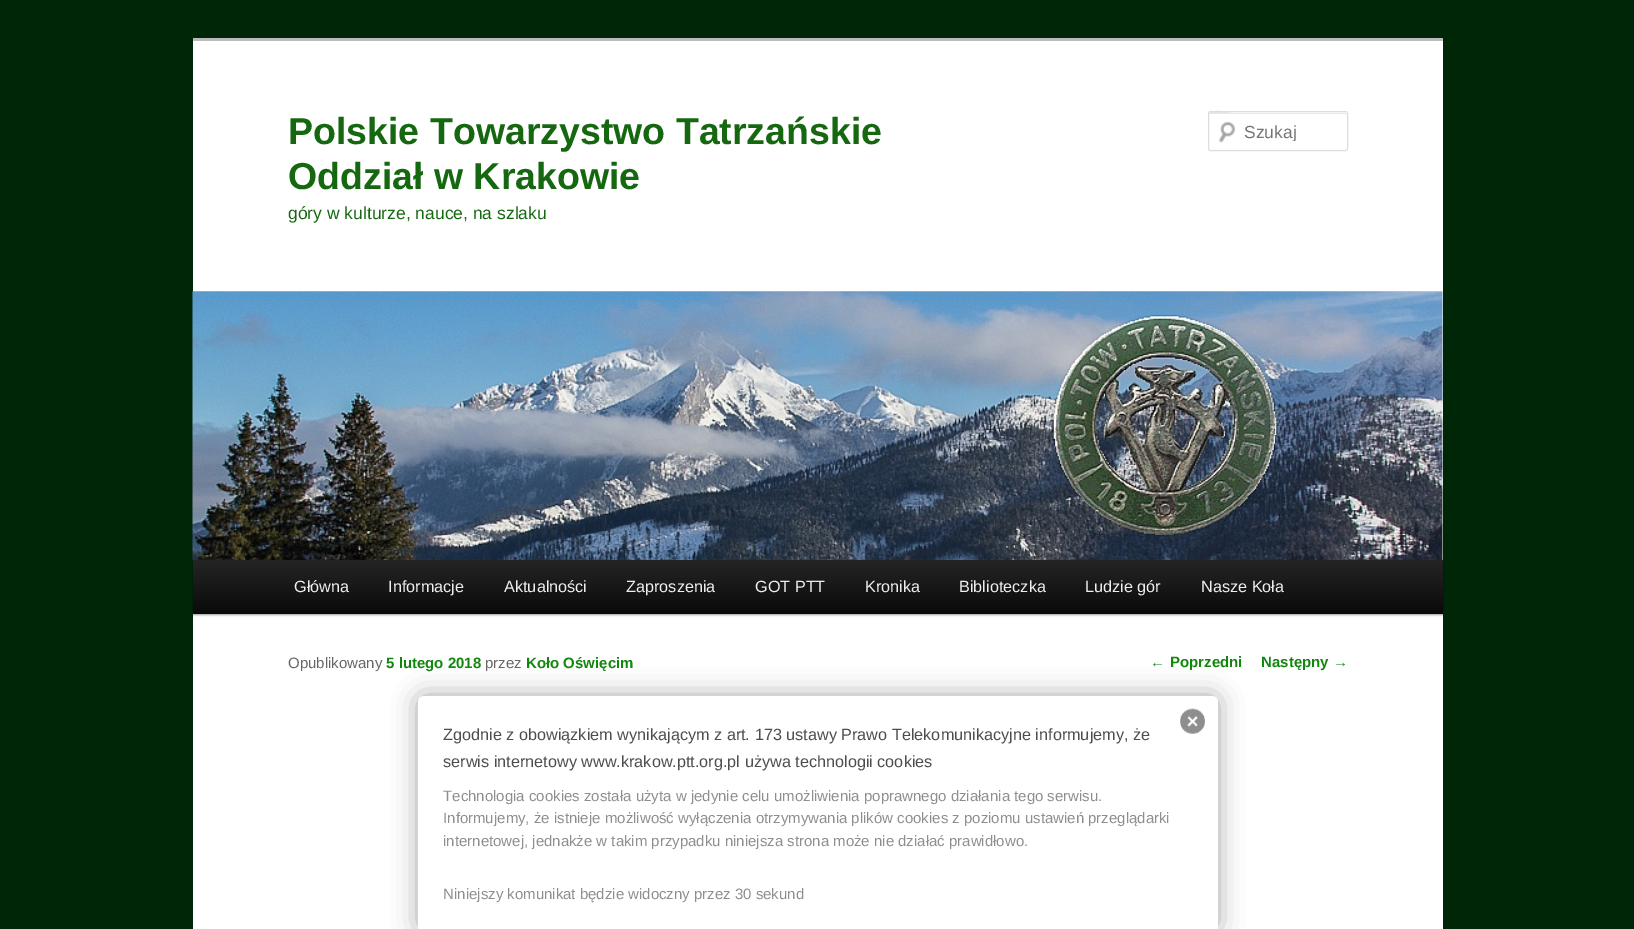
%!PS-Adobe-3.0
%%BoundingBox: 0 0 1634 929
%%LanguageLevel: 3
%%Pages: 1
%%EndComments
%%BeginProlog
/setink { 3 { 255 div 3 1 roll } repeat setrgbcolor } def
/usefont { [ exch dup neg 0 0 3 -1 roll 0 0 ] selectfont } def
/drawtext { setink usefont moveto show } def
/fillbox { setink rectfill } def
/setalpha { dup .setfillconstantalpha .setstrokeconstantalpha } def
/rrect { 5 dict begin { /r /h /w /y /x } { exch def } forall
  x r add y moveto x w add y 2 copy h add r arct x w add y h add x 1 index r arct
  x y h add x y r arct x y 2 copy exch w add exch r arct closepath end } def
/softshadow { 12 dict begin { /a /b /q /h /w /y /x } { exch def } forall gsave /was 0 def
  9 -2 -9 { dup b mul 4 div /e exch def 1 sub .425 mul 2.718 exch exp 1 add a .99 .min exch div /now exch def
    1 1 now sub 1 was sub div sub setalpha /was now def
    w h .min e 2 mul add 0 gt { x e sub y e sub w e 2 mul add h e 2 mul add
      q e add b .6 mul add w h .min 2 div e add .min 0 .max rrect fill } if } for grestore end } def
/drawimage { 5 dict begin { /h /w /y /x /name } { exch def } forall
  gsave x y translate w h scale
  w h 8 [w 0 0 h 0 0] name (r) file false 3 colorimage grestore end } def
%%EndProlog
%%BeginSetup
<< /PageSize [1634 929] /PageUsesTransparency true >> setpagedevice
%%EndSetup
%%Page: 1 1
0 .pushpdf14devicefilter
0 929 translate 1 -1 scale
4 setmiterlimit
0 0 1634 929 0 38 8 fillbox
193 41 1250 888 255 255 255 fillbox
193 38 1250 3 187 187 187 fillbox
(Polskie Towarzystwo Tatrzańskie) 288 144 /LiberationSans-Bold 37.5 21 104 15 drawtext
(Oddział w Krakowie) 288 189 /LiberationSans-Bold 37.5 21 104 15 drawtext
(góry w kulturze, nauce, na szlaku) 288 219 /LiberationSans-Regular 17.5 21 104 15 drawtext
(assets/img1.rgb) 1218 121 18 22 drawimage
230 230 230 setink
1210 114 moveto 1345 114 lineto 1346 114 1346 114 1346 115 curveto 1346 113 lineto 1232 113 lineto 1232 113 1209 107 1209 115 curveto 1209 114 1209 114 1210 114 curveto closepath fill
221 221 221 setink
1208.5 111.5 139 39 2 rrect stroke
gsave
1244 121 90 20 rectclip
(Szukaj) 1244 138 /LiberationSans-Regular 17.5 117 117 117 drawtext
grestore
0 0 0 setink
193 561 1250 54 0 1 0.4 softshadow
(assets/img2.rgb) 192 291 1251 269 drawimage
gsave 193 560 moveto 1443 560 lineto 1443 614 lineto 193 614 lineto closepath clip newpath
<< /ShadingType 2 /ColorSpace /DeviceRGB /Coords [818 560 818 614] /Extend [true true] /Function << /FunctionType 2 /Domain [0 1] /C0 [0.145 0.145 0.145] /C1 [0.039 0.039 0.039] /N 1 >> >> shfill grestore
(Główna) 294 592 /LiberationSans-Regular 16.25 238 238 238 drawtext
(Informacje) 388 592 /LiberationSans-Regular 16.25 238 238 238 drawtext
(Aktualności) 504 592 /LiberationSans-Regular 16.25 238 238 238 drawtext
(Zaproszenia) 626 592 /LiberationSans-Regular 16.25 238 238 238 drawtext
(GOT PTT) 755 592 /LiberationSans-Regular 16.25 238 238 238 drawtext
(Kronika) 865 592 /LiberationSans-Regular 16.25 238 238 238 drawtext
(Biblioteczka) 959 592 /LiberationSans-Regular 16.25 238 238 238 drawtext
(Ludzie gór) 1085 592 /LiberationSans-Regular 16.25 238 238 238 drawtext
(Nasze Koła) 1201 592 /LiberationSans-Regular 16.25 238 238 238 drawtext
(Opublikowany) 288 668 /LiberationSans-Regular 15 102 102 102 drawtext
(5 lutego 2018) 386 668 /LiberationSans-Bold 15 18 135 14 drawtext
(przez) 485 668 /LiberationSans-Regular 15 102 102 102 drawtext
(Koło Oświęcim) 526 668 /LiberationSans-Bold 15 18 135 14 drawtext
(←) 1150 667 /LiberationSans-Regular 15 18 135 14 drawtext
(Poprzedni) 1170 667 /LiberationSans-Bold 15 18 135 14 drawtext
(Następny) 1261 667 /LiberationSans-Bold 15 18 135 14 drawtext
(→) 1333 667 /LiberationSans-Regular 15 18 135 14 drawtext
gsave
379 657 moveto 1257 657 lineto 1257 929 lineto 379 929 lineto closepath 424 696 moveto 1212 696 lineto 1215.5 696 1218 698.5 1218 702 curveto 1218 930 lineto 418 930 lineto 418 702 lineto 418 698.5 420.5 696 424 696 curveto closepath eoclip newpath
161 161 161 setink
418 696 800 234 6 12.5 0.95 softshadow
grestore
0.95 setalpha
255 255 255 setink
424 696 moveto 1212 696 lineto 1215.5 696 1218 698.5 1218 702 curveto 1218 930 lineto 418 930 lineto 418 702 lineto 418 698.5 420.5 696 424 696 curveto closepath fill
1 setalpha
(assets/img3.rgb) 1180 708 25 26 drawimage
(Zgodnie z obowiązkiem wynikającym z art. 173 ustawy Prawo Telekomunikacyjne informujemy, że) 443 740 /LiberationSans-Regular 16.25 77 77 77 drawtext
(serwis internetowy www.krakow.ptt.org.pl używa technologii cookies) 443 767 /LiberationSans-Regular 16.25 77 77 77 drawtext
(Technologia cookies została użyta w jedynie celu umożliwienia poprawnego działania tego serwisu.) 443 801 /LiberationSans-Regular 15 142 142 142 drawtext
(Informujemy, że istnieje możliwość wyłączenia otrzymywania plików cookies z poziomu ustawień przeglądarki) 443 823 /LiberationSans-Regular 15 142 142 142 drawtext
(internetowej, jednakże w takim przypadku niniejsza strona może nie działać prawidłowo.) 443 846 /LiberationSans-Regular 15 142 142 142 drawtext
(Niniejszy komunikat będzie widoczny przez 30 sekund) 443 899 /LiberationSans-Regular 15 142 142 142 drawtext
.poppdf14devicefilter showpage
%%EOF
